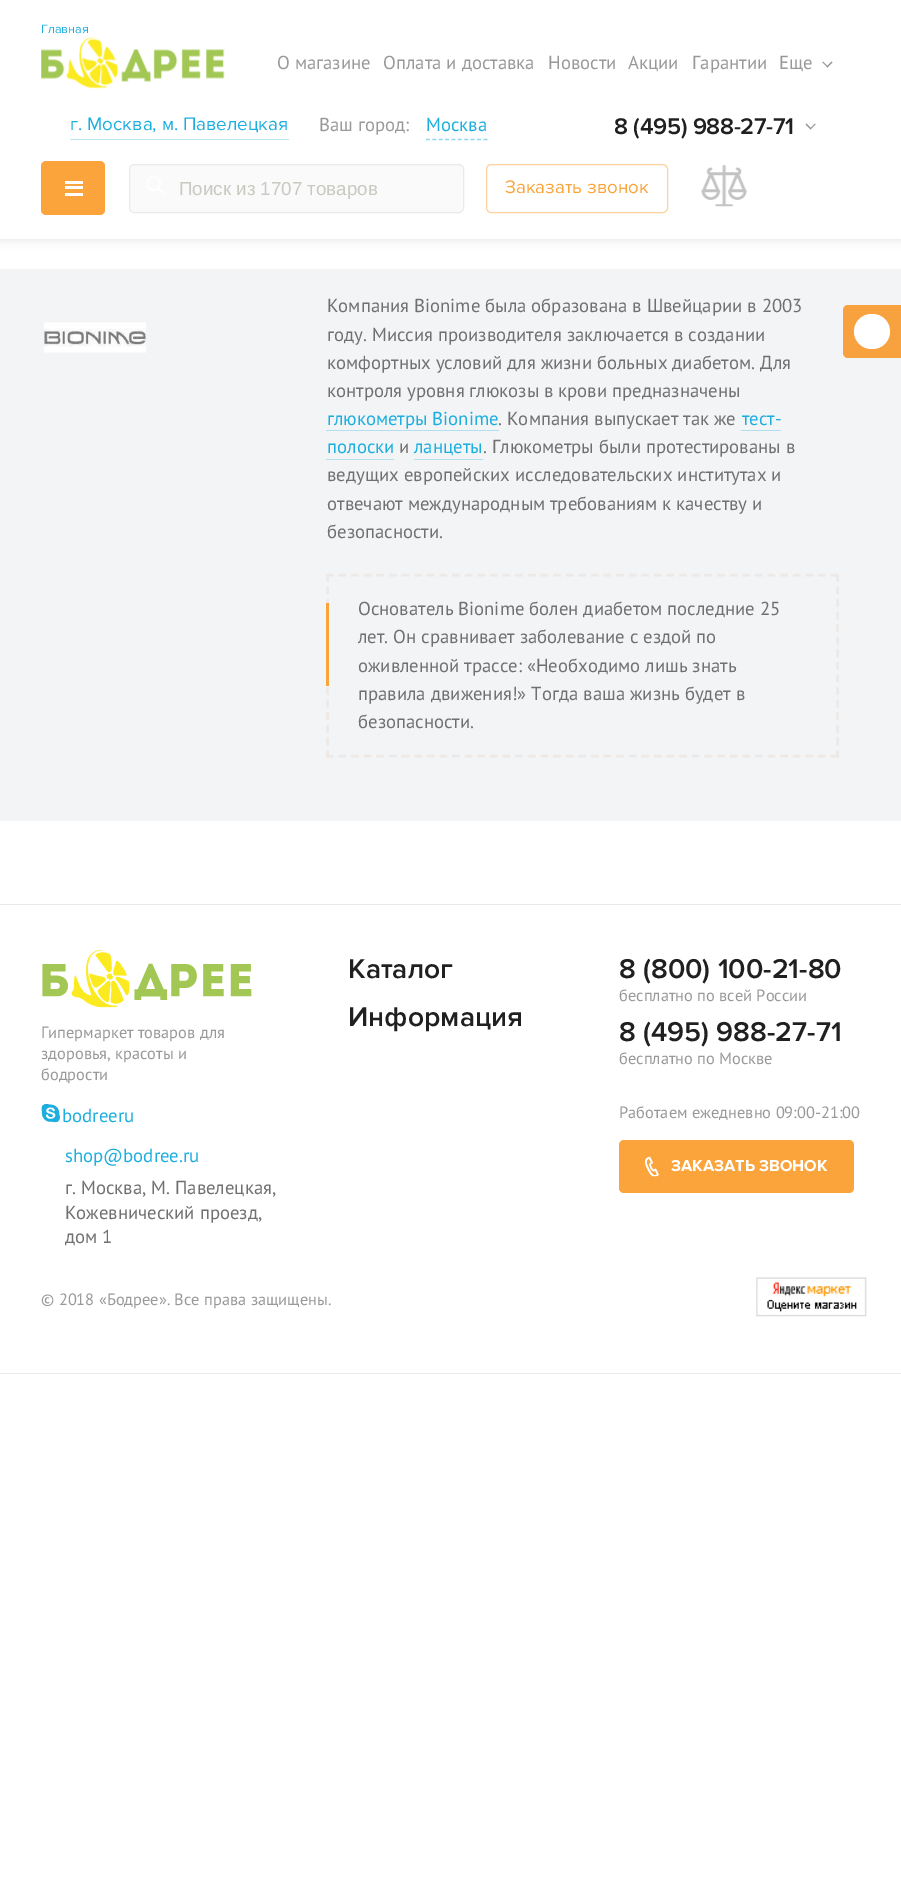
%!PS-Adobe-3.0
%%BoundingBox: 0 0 901 1879
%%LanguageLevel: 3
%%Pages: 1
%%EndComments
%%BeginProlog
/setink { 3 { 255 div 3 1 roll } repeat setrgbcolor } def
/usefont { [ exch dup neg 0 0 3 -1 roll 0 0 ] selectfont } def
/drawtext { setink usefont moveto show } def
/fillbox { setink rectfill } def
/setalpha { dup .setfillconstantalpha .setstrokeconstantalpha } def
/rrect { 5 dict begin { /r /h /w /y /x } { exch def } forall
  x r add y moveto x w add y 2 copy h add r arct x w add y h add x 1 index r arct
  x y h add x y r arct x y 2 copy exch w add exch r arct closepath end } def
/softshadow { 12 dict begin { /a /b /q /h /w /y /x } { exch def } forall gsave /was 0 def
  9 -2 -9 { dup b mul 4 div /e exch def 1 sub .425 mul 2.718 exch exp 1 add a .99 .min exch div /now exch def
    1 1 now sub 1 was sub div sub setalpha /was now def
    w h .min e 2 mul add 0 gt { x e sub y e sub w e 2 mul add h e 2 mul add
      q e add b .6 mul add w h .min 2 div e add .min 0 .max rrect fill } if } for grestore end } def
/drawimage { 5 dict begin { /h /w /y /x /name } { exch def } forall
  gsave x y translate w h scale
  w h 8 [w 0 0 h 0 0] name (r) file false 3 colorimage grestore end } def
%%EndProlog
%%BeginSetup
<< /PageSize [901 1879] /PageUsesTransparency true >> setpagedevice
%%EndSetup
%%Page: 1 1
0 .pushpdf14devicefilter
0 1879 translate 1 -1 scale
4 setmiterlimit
0 0 901 1879 255 255 255 fillbox
32 32 32 setink
0 3 901 238 0 4 0.1 softshadow
0 0 901 239 255 255 255 fillbox
(Главная) 41 33 /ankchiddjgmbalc-Regular 12.5 28 174 222 drawtext
(assets/img1.rgb) 41 37 184 52 drawimage
(О магазине) 277 69 /PTSans-Regular 18.75 153 153 153 drawtext
(Оплата и доставка) 383 69 /PTSans-Regular 18.75 153 153 153 drawtext
(Новости) 548 69 /PTSans-Regular 18.75 153 153 153 drawtext
(Акции) 628 69 /PTSans-Regular 18.75 153 153 153 drawtext
(Гарантии) 692 69 /PTSans-Regular 18.75 153 153 153 drawtext
(Еще) 779 69 /PTSans-Regular 18.75 153 153 153 drawtext
831.5 61.5 moveto 832.5 62.5 lineto 827.5 67.5 lineto 826.5 66.5 lineto closepath fill
823 61.5 moveto 828 66.5 lineto 827.5 67.5 lineto 822.5 62.5 lineto closepath fill
70 139 219 1 187 231 245 fillbox
(г. Москва, м. Павелецкая) 70 130 /ankchiddjgmbalc-Regular 18.75 28 174 222 drawtext
(Ваш город:) 319 131 /PTSans-Regular 18.75 153 153 153 drawtext
(Москва) 426 131 /PTSans-Regular 18.75 28 174 222 drawtext
142 215 239 setink
1.2 setlinewidth
[3.75 2.64] 0 setdash
426 139.5 moveto 487.5 139.5 lineto stroke
/ProximaNova-SemiBold 23.5 usefont
32 32 32 setink
614 134 moveto -0.3 0 (8 \(495\) 988-27-71) ashow
153 153 153 setink
815 123.5 moveto 815.5 124.5 lineto 810.5 129.5 lineto 810 128.5 lineto closepath fill
806.5 123.5 moveto 811.5 128.5 lineto 810.5 129.5 lineto 805.5 124.5 lineto closepath fill
250 164 59 setink
41 161 64 54 5 rrect fill
65 181 18 3 255 255 255 fillbox
65 186 18 3 255 255 255 fillbox
65 193 18 3 255 255 255 fillbox
250 250 250 setink
129.5 164.5 334 48 4.5 rrect gsave fill grestore
236 233 230 setink
1 setlinewidth
[] 0 setdash
stroke
(assets/img2.rgb) 147 176 17 18 drawimage
(Поиск из 1707 товаров) 179 195 /LiberationSans-Regular 18.75 200 201 193 drawtext
253 210 157 setink
486.5 164.5 181 48 4.5 rrect stroke
(Заказать звонок) 505 193 /ankchiddjgmbalc-Regular 18.75 250 164 59 drawtext
(assets/img3.rgb) 701 165 47 42 drawimage
0 269 901 552 243 244 246 fillbox
(assets/img4.rgb) 44 322 102 31 drawimage
(Компания Bionime была образована в Швейцарии в 2003) 327 312 /PTSans-Regular 18.75 112 112 112 drawtext
(году. Миссия производителя заключается в создании) 327 341 /PTSans-Regular 18.75 112 112 112 drawtext
(комфортных условий для жизни больных диабетом. Для) 327 369 /PTSans-Regular 18.75 112 112 112 drawtext
(контроля уровня глюкозы в крови предназначены) 327 397 /PTSans-Regular 18.75 112 112 112 drawtext
(глюкометры Bionime) 327 425 /PTSans-Regular 18.75 28 174 222 drawtext
326 430 173 1 178 223 239 fillbox
(. Компания выпускает так же) 498 425 /PTSans-Regular 18.75 112 112 112 drawtext
(тест-) 742 425 /PTSans-Regular 18.75 28 174 222 drawtext
741 430 40 1 178 223 239 fillbox
(полоски) 327 453 /PTSans-Regular 18.75 28 174 222 drawtext
326 459 68 1 178 223 239 fillbox
(и) 399 453 /PTSans-Regular 18.75 112 112 112 drawtext
(ланцеты) 414 453 /PTSans-Regular 18.75 28 174 222 drawtext
414 459 69 1 178 223 239 fillbox
(. Глюкометры были протестированы в) 483 453 /PTSans-Regular 18.75 112 112 112 drawtext
(ведущих европейских исследовательских институтах и) 327 481 /PTSans-Regular 18.75 112 112 112 drawtext
(отвечают международным требованиям к качеству и) 327 510 /PTSans-Regular 18.75 112 112 112 drawtext
(безопасности.) 327 538 /PTSans-Regular 18.75 112 112 112 drawtext
236 233 230 setink
2.5 setlinewidth
[7.5 5.12] 0 setdash
326 575 moveto 839 575 lineto stroke
[7.5 5.09] 0 setdash
837.5 574 moveto 837.5 757.5 lineto stroke
[7.5 5.12] 0 setdash
326 756 moveto 839 756 lineto stroke
[7.5 5.09] 0 setdash
327.5 574 moveto 327.5 757.5 lineto stroke
326 603 3 83 250 164 59 fillbox
(Основатель Bionime болен диабетом последние 25) 358 615 /PTSans-Regular 18.75 112 112 112 drawtext
(лет. Он сравнивает заболевание с ездой по) 358 643 /PTSans-Regular 18.75 112 112 112 drawtext
(оживленной трассе: «Необходимо лишь знать) 358 672 /PTSans-Regular 18.75 112 112 112 drawtext
(правила движения!» Тогда ваша жизнь будет в) 358 700 /PTSans-Regular 18.75 112 112 112 drawtext
(безопасности.) 358 728 /PTSans-Regular 18.75 112 112 112 drawtext
248 162 63 setink
843 305 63 53 5 rrect fill
255 255 255 setink
854 314 36 35 17.5 rrect fill
0 904 901 1 236 233 230 fillbox
0 1373 901 1 236 233 230 fillbox
(Каталог) 348 978 /ProximaNova-SemiBold 28.25 32 32 32 drawtext
(Информация) 348 1026 /ProximaNova-SemiBold 28.25 32 32 32 drawtext
(8 \(800\) 100-21-80) 619 978 /ProximaNova-SemiBold 28.25 32 32 32 drawtext
(бесплатно по всей России) 619 1001 /PTSans-Regular 16.4 153 153 153 drawtext
(8 \(495\) 988-27-71) 619 1041 /ProximaNova-SemiBold 28.25 32 32 32 drawtext
(бесплатно по Москве) 619 1064 /PTSans-Regular 16.4 153 153 153 drawtext
(Работаем ежедневно 09:00-21:00) 619 1118 /PTSans-Regular 16.4 153 153 153 drawtext
250 164 59 setink
619 1140 235 53 5 rrect fill
(assets/img5.rgb) 645 1156 14 21 drawimage
(ЗАКАЗАТЬ ЗВОНОК) 671 1171 /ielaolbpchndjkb-Bold 16.4 255 255 255 drawtext
(assets/img6.rgb) 42 950 210 58 drawimage
(Гипермаркет товаров для) 41 1038 /PTSans-Regular 16.4 153 153 153 drawtext
(здоровья, красоты и) 41 1059 /PTSans-Regular 16.4 153 153 153 drawtext
(бодрости) 41 1080 /PTSans-Regular 16.4 153 153 153 drawtext
(assets/img7.rgb) 41 1104 19 19 drawimage
(bodreeru) 62 1122 /PTSans-Regular 18.75 28 174 222 drawtext
(shop@bodree.ru) 65 1162 /PTSans-Regular 18.75 28 174 222 drawtext
(г. Москва, М. Павелецкая,) 65 1194 /PTSans-Regular 18.75 112 112 112 drawtext
(Кожевнический проезд,) 65 1219 /PTSans-Regular 18.75 112 112 112 drawtext
(дом 1) 65 1243 /PTSans-Regular 18.75 112 112 112 drawtext
(© 2018 «Бодрее». Все права защищены.) 41 1305 /PTSans-Regular 16.4 153 153 153 drawtext
(assets/img8.rgb) 756 1277 111 40 drawimage
.poppdf14devicefilter showpage
%%EOF
